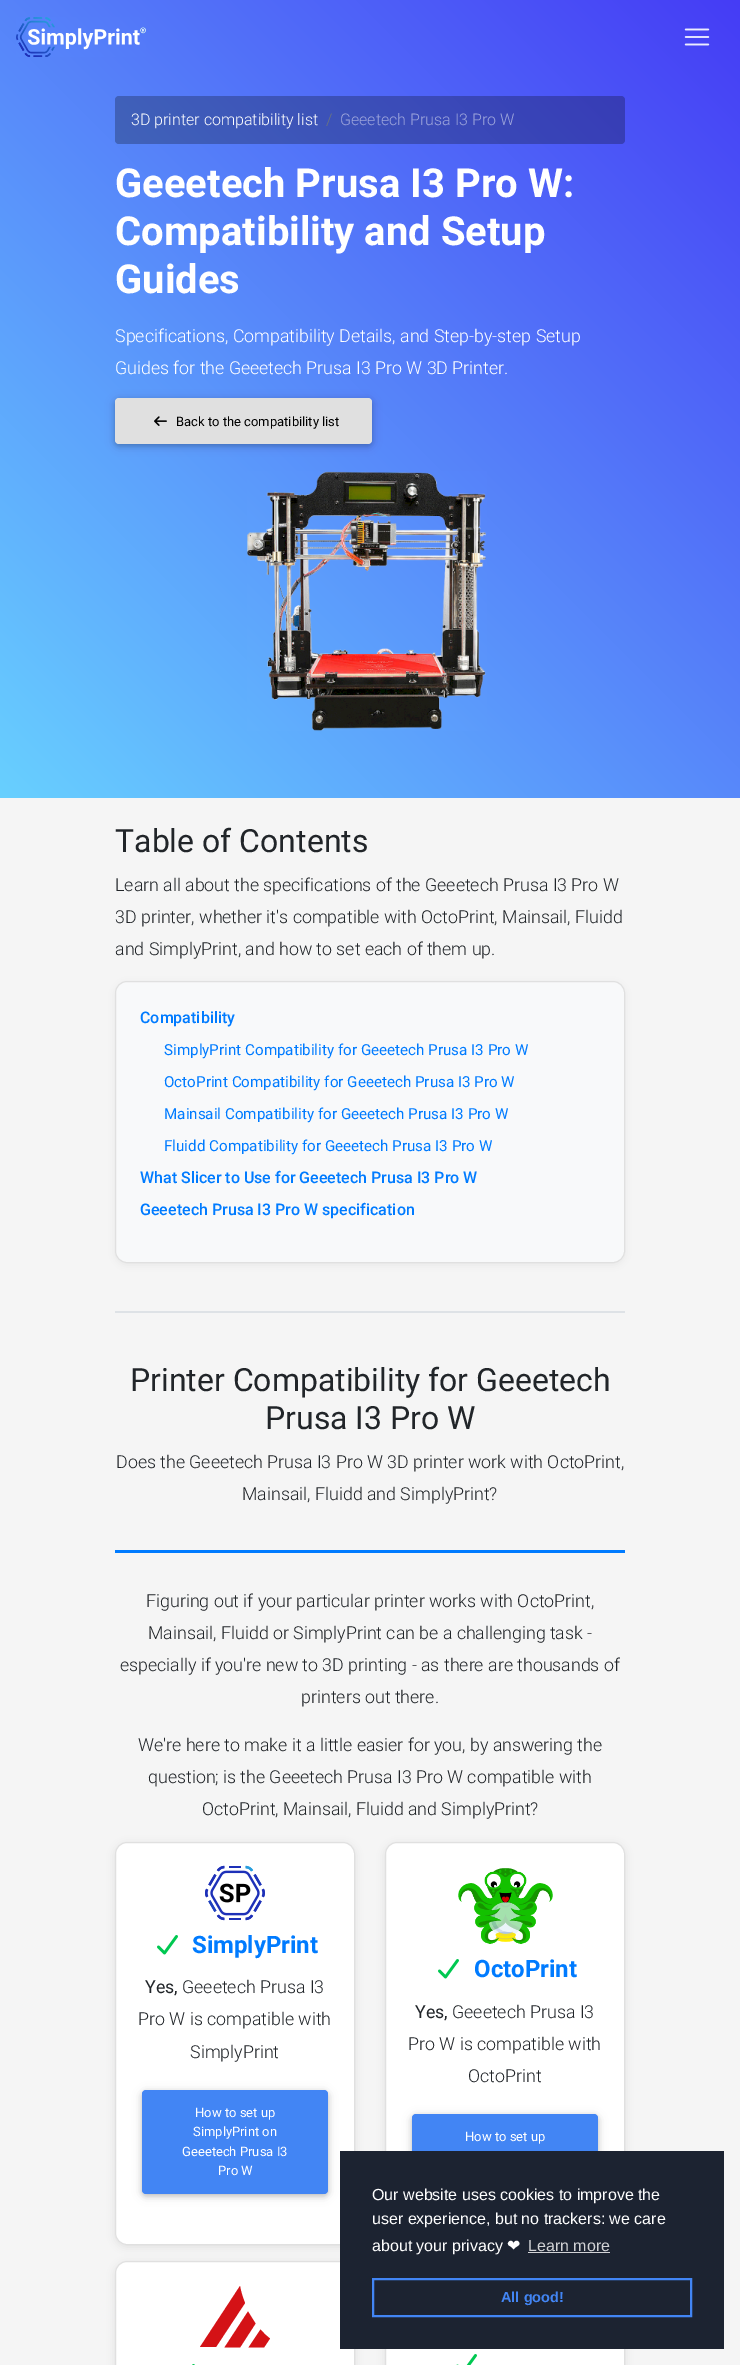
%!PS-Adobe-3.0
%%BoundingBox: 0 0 740 2365
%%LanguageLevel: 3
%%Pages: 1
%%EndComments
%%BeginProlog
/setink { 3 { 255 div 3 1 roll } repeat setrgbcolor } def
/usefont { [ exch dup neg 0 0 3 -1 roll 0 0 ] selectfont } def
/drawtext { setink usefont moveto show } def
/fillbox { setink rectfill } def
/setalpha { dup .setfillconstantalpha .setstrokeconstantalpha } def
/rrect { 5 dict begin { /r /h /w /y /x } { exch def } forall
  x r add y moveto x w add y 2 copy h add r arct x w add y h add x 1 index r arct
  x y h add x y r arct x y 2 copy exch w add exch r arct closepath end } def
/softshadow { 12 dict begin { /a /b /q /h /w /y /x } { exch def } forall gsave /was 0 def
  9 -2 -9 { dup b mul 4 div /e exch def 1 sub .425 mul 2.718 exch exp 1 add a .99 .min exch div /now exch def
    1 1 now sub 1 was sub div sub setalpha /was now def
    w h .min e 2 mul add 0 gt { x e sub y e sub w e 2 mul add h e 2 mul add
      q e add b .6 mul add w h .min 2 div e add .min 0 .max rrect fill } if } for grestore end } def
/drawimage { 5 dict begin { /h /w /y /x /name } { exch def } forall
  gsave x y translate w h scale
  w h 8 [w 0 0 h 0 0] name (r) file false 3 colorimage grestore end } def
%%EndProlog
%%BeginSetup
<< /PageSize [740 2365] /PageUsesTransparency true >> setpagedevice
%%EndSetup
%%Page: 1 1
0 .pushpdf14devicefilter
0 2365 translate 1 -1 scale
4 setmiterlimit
0 0 740 2365 245 245 245 fillbox
gsave 0 0 moveto 740 0 lineto 740 798 lineto 0 798 lineto closepath clip newpath
<< /ShadingType 2 /ColorSpace /DeviceRGB /Coords [-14 784 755 15] /Extend [true true] /Function << /FunctionType 2 /Domain [0 1] /C0 [0.408 0.816 1] /C1 [0.271 0.235 0.961] /N 1 >> >> shfill grestore
(assets/img1.rgb) 16 17 130 40 drawimage
(assets/img2.rgb) 684 28 26 18 drawimage
0.26 setalpha
0 0 0 setink
115 96 510 48 4 rrect fill
1 setalpha
(3D printer compatibility list) 131 125 /Roboto-Light 16 255 255 255 drawtext
(/) 326 125 /Roboto-Light 16 108 117 125 drawtext
(Geeetech Prusa I3 Pro W) 340 125 /Roboto-Light 16 157 165 219 drawtext
(Geeetech Prusa I3 Pro W:) 115 197 /Roboto-Bold 40 255 255 255 drawtext
(Compatibility and Setup) 115 245 /Roboto-Bold 40 255 255 255 drawtext
(Guides) 115 293 /Roboto-Bold 40 255 255 255 drawtext
(Specifications, Compatibility Details, and Step-by-step Setup) 115 342 /Roboto-Light 17.8 255 255 255 drawtext
(Guides for the Geeetech Prusa I3 Pro W 3D Printer.) 115 374 /Roboto-Light 17.8 255 255 255 drawtext
0 0 0 setink
115 400 257 46 4 5 0.12 softshadow
115 400 257 46 4 2.5 0.16 softshadow
224 224 224 setink
115 398 257 46 4 rrect fill
(assets/img3.rgb) 154 416 13 10 drawimage
(Back to the compatibility list) 176 426 /Roboto-Regular 13 0 0 0 drawtext
(assets/img4.rgb) 247 471 240 260 drawimage
(Table of Contents) 115 852 /Roboto-Regular 32 33 37 41 drawtext
(Learn all about the specifications of the Geeetech Prusa I3 Pro W) 115 891 /Roboto-Light 17.8 33 37 41 drawtext
(3D printer, whether it's compatible with OctoPrint, Mainsail, Fluidd) 115 923 /Roboto-Light 17.8 33 37 41 drawtext
(and SimplyPrint, and how to set each of them up.) 115 955 /Roboto-Light 17.8 33 37 41 drawtext
0 0 0 setink
115 983 510 282 12 4 0.06 softshadow
248 249 250 setink
115.5 981.5 509 281 11.5 rrect gsave fill grestore
224 224 224 setink
stroke
(Compatibility) 140 1023 /Roboto-Medium 16 0 123 255 drawtext
(SimplyPrint Compatibility for Geeetech Prusa I3 Pro W) 164 1055 /Roboto-Regular 15.2 0 123 255 drawtext
(OctoPrint Compatibility for Geeetech Prusa I3 Pro W) 164 1087 /Roboto-Regular 15.2 0 123 255 drawtext
(Mainsail Compatibility for Geeetech Prusa I3 Pro W) 164 1119 /Roboto-Regular 15.2 0 123 255 drawtext
(Fluidd Compatibility for Geeetech Prusa I3 Pro W) 164 1151 /Roboto-Regular 15.2 0 123 255 drawtext
(What Slicer to Use for Geeetech Prusa I3 Pro W) 140 1183 /Roboto-Medium 16 0 123 255 drawtext
(Geeetech Prusa I3 Pro W specification) 140 1215 /Roboto-Medium 16 0 123 255 drawtext
115 1311 510 2 222 226 230 fillbox
115 1550 510 3 0 123 255 fillbox
(Printer Compatibility for Geeetech) 130 1391 /Roboto-Regular 32 33 37 41 drawtext
(Prusa I3 Pro W) 265 1429 /Roboto-Regular 32 33 37 41 drawtext
(Does the Geeetech Prusa I3 Pro W 3D printer work with OctoPrint,) 116 1468 /Roboto-Light 17.8 33 37 41 drawtext
(Mainsail, Fluidd and SimplyPrint?) 242 1500 /Roboto-Light 17.8 33 37 41 drawtext
(Figuring out if your particular printer works with OctoPrint,) 146 1607 /Roboto-Light 17.8 33 37 41 drawtext
(Mainsail, Fluidd or SimplyPrint can be a challenging task -) 148 1639 /Roboto-Light 17.8 33 37 41 drawtext
(especially if you're new to 3D printing - as there are thousands of) 120 1671 /Roboto-Light 17.8 33 37 41 drawtext
(printers out there.) 301 1703 /Roboto-Light 17.8 33 37 41 drawtext
(We're here to make it a little easier for you, by answering the) 138 1751 /Roboto-Light 17.8 33 37 41 drawtext
(question; is the Geeetech Prusa I3 Pro W compatible with) 148 1783 /Roboto-Light 17.8 33 37 41 drawtext
(OctoPrint, Mainsail, Fluidd and SimplyPrint?) 202 1815 /Roboto-Light 17.8 33 37 41 drawtext
0 0 0 setink
115 1844 240 403 12 4 0.08 softshadow
255 255 255 setink
115.5 1842.5 239 402 11.5 rrect gsave fill grestore
224 224 224 setink
stroke
(assets/img5.rgb) 205 1865 60 56 drawimage
(assets/img6.rgb) 157 1935 21 20 drawimage
(SimplyPrint) 192 1953 /Roboto-Bold 24 0 123 255 drawtext
(Yes,) 145 1993 /Roboto-Regular 17.8 33 37 41 drawtext
(Geeetech Prusa I3) 182 1993 /Roboto-Light 17.8 33 37 41 drawtext
(Pro W is compatible with) 138 2025 /Roboto-Light 17.8 33 37 41 drawtext
(SimplyPrint) 190 2058 /Roboto-Light 17.8 33 37 41 drawtext
0 0 0 setink
142 2092 186 104 4 5 0.12 softshadow
142 2092 186 104 4 2.5 0.16 softshadow
66 133 244 setink
142 2090 186 104 4 rrect fill
(How to set up) 195 2117 /Roboto-Regular 13 255 255 255 drawtext
(SimplyPrint on) 193 2136 /Roboto-Regular 13 255 255 255 drawtext
(Geeetech Prusa I3) 182 2156 /Roboto-Regular 13 255 255 255 drawtext
(Pro W) 218 2175 /Roboto-Regular 13 255 255 255 drawtext
0 0 0 setink
385 1844 240 403 12 4 0.08 softshadow
255 255 255 setink
385.5 1842.5 239 402 11.5 rrect gsave fill grestore
224 224 224 setink
stroke
(assets/img7.rgb) 458 1868 95 76 drawimage
(assets/img6.rgb) 438 1959 21 20 drawimage
(OctoPrint) 474 1977 /Roboto-Bold 24 0 123 255 drawtext
(Yes,) 415 2018 /Roboto-Regular 17.8 33 37 41 drawtext
(Geeetech Prusa I3) 452 2018 /Roboto-Light 17.8 33 37 41 drawtext
(Pro W is compatible with) 408 2050 /Roboto-Light 17.8 33 37 41 drawtext
(OctoPrint) 468 2082 /Roboto-Light 17.8 33 37 41 drawtext
0 0 0 setink
412 2116 186 104 4 5 0.12 softshadow
412 2116 186 104 4 2.5 0.16 softshadow
66 133 244 setink
412 2114 186 104 4 rrect fill
(How to set up) 465 2141 /Roboto-Regular 13 255 255 255 drawtext
0 0 0 setink
115 2263 240 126 12 4 0.08 softshadow
255 255 255 setink
115.5 2261.5 239 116 11.5 rrect gsave fill grestore
224 224 224 setink
stroke
212 18 22 setink
245 2303 moveto 216 2347 lineto 200 2347 lineto 240 2286 lineto 241 2292 243 2298 245 2303 curveto fill
248 2311.5 moveto 224.5 2347.5 lineto 240 2347.5 lineto 255.5 2323.5 lineto 253 2319.5 250.5 2315.5 248 2311.5 curveto fill
270 2338.5 moveto 264 2347.5 lineto 248.5 2347.5 lineto 260.5 2329.5 lineto 263.5 2333 266.5 2336 270 2338.5 curveto closepath fill
(assets/img8.rgb) 192 2364 3 1 drawimage
0 0 0 setink
385 2263 240 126 12 4 0.08 softshadow
386 2349 238 16 255 255 255 fillbox
224 224 224 setink
385.5 2261.5 239 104 rectstroke
(assets/img9.rgb) 456 2354 21 11 drawimage
340 2151 384 198 28 35 49 fillbox
(Our website uses cookies to improve the) 372 2200 /LiberationSans-Regular 16 255 255 255 drawtext
(user experience, but no trackers: we care) 372 2224 /LiberationSans-Regular 16 255 255 255 drawtext
(about your privacy) 372 2251 /LiberationSans-Regular 16 255 255 255 drawtext
(❤) 507 2251 /DejaVuSans-Regular 16 255 255 255 drawtext
(Learn more) 528 2251 /LiberationSans-Regular 16 210 211 214 drawtext
528 2252 82 1 210 211 214 fillbox
66 133 244 setink
2 setlinewidth
373 2279 318 37 rectstroke
(All good!) 501 2302 /LiberationSans-Bold 14.5 66 133 244 drawtext
.poppdf14devicefilter showpage
%%EOF
